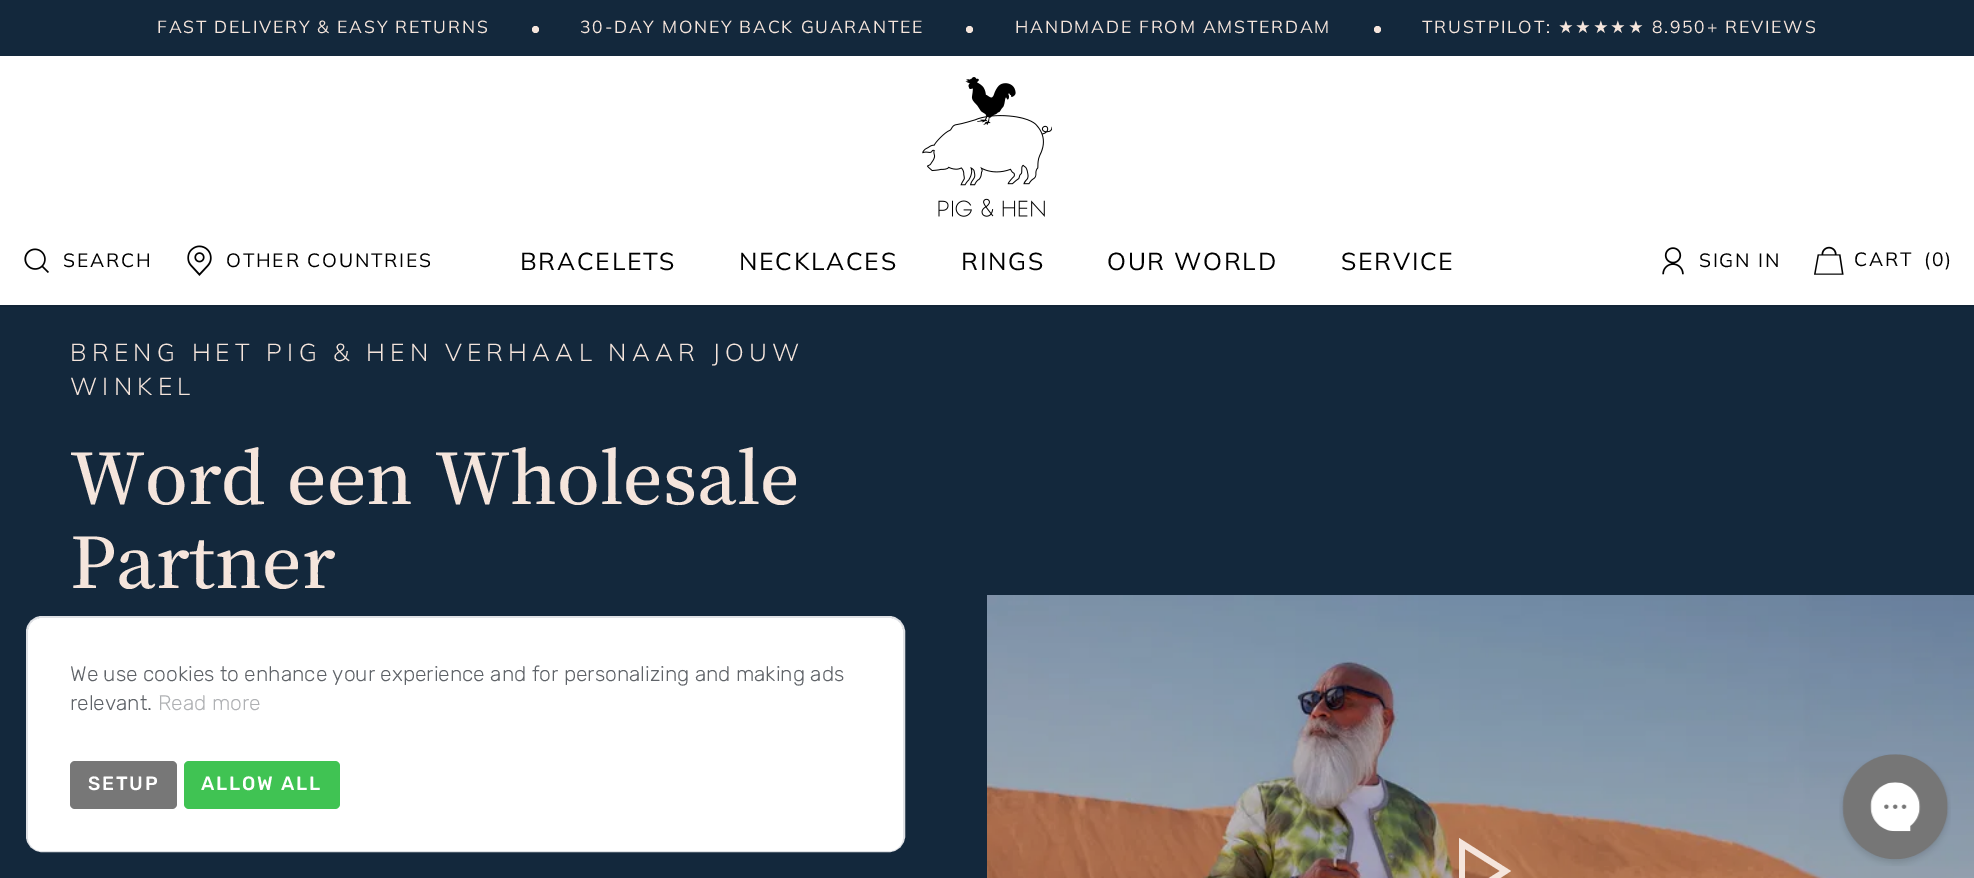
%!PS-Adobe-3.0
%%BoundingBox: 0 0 1974 878
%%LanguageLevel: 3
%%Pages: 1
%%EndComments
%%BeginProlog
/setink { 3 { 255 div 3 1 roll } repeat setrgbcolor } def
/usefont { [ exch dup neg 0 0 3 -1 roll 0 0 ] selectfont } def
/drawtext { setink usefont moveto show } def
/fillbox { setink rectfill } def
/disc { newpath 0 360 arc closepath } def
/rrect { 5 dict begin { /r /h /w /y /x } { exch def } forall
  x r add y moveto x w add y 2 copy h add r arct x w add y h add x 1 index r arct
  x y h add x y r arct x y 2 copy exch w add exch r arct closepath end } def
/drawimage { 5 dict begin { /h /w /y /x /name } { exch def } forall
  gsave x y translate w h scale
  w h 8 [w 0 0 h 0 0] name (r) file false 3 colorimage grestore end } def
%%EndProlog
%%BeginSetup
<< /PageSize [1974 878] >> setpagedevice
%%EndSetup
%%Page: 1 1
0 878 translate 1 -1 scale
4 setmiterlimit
0 0 1974 878 19 40 60 fillbox
0 56 1974 249 255 255 255 fillbox
/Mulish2-ExtraLight 17.5 usefont
245 229 220 setink
157 33 moveto 1.75 0 (FAST DELIVERY & EASY RETURNS) ashow
535.5 29.5 3.5 disc fill
580 33 moveto 1.75 0 (30-DAY MONEY BACK GUARANTEE) ashow
969.5 29.5 3.5 disc fill
1015 33 moveto 1.75 0 (HANDMADE FROM AMSTERDAM) ashow
1377.5 29.5 3.5 disc fill
1422 33 moveto 1.75 0 (TRUSTPILOT:) ashow
/DejaVuSans-Regular 17.5 usefont
1558 33 moveto 1.75 0 (★★★★★) ashow
/Mulish2-ExtraLight 17.5 usefont
1652 33 moveto 1.75 0 (8.950+ REVIEWS) ashow
(assets/img1.rgb) 922 77 130 140 drawimage
(assets/img2.rgb) 24 248 25 25 drawimage
/Mulish2-ExtraLight 19.25 usefont
0 0 0 setink
63 267 moveto 1.75 0 (SEARCH) ashow
(assets/img3.rgb) 187 245 25 31 drawimage
226 267 moveto 1.75 0 (OTHER COUNTRIES) ashow
/Mulish2-ExtraLight 24.5 usefont
520 270 moveto 1.75 0 (BRACELETS) ashow
739 270 moveto 1.75 0 (NECKLACES) ashow
961 270 moveto 1.75 0 (RINGS) ashow
1107 270 moveto 1.75 0 (OUR WORLD) ashow
1341 270 moveto 1.75 0 (SERVICE) ashow
(assets/img4.rgb) 1662 247 22 28 drawimage
/Mulish2-ExtraLight 19.25 usefont
1699 267 moveto 1.75 0 (SIGN IN) ashow
(assets/img5.rgb) 1814 246 30 29 drawimage
1854 266 moveto 1.75 0 (CART) ashow
1924 266 moveto 1.75 0 (\(0\)) ashow
0 305 1974 2 17 36 54 fillbox
/Mulish-ExtraLight 24.5 usefont
245 229 220 setink
70 361 moveto 5.25 0 (BRENG HET PIG & HEN VERHAAL NAAR JOUW) ashow
70 395 moveto 5.25 0 (WINKEL) ashow
/NotoSerifJP-SemiBold 70 usefont
70 504 moveto 4 0 32 (Word een Wholesale) widthshow
(Partner) 70 588 /NotoSerifJP-SemiBold 70 245 229 220 drawtext
(assets/img6.rgb) 987 595 987 283 drawimage
1459 838 moveto 1511 871 lineto 1459 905 lineto closepath 1465 849 moveto 1465 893 lineto 1500 871 lineto closepath fill
223 225 229 setink
2 setlinewidth
27 617 877 234 15 rrect stroke
255 255 255 setink
28 618 875 233 14 rrect fill
(We use cookies to enhance your experience and for personalizing and making ads) 70 681 /Rubik-Light 21 95 99 104 drawtext
(relevant.) 70 710 /Rubik-Light 21 95 99 104 drawtext
(Read more) 158 710 /Rubik-Light 21 175 177 180 drawtext
119 119 119 setink
70 761 107 48 5 rrect fill
/Rubik-Medium 19.25 usefont
255 255 255 setink
88 790 moveto 1.75 0 (SETUP) ashow
64 195 83 setink
184 761 156 48 5 rrect fill
255 255 255 setink
201 790 moveto 1.75 0 (ALLOW ALL) ashow
(assets/img7.rgb) 1839 754 112 112 drawimage
showpage
%%EOF
